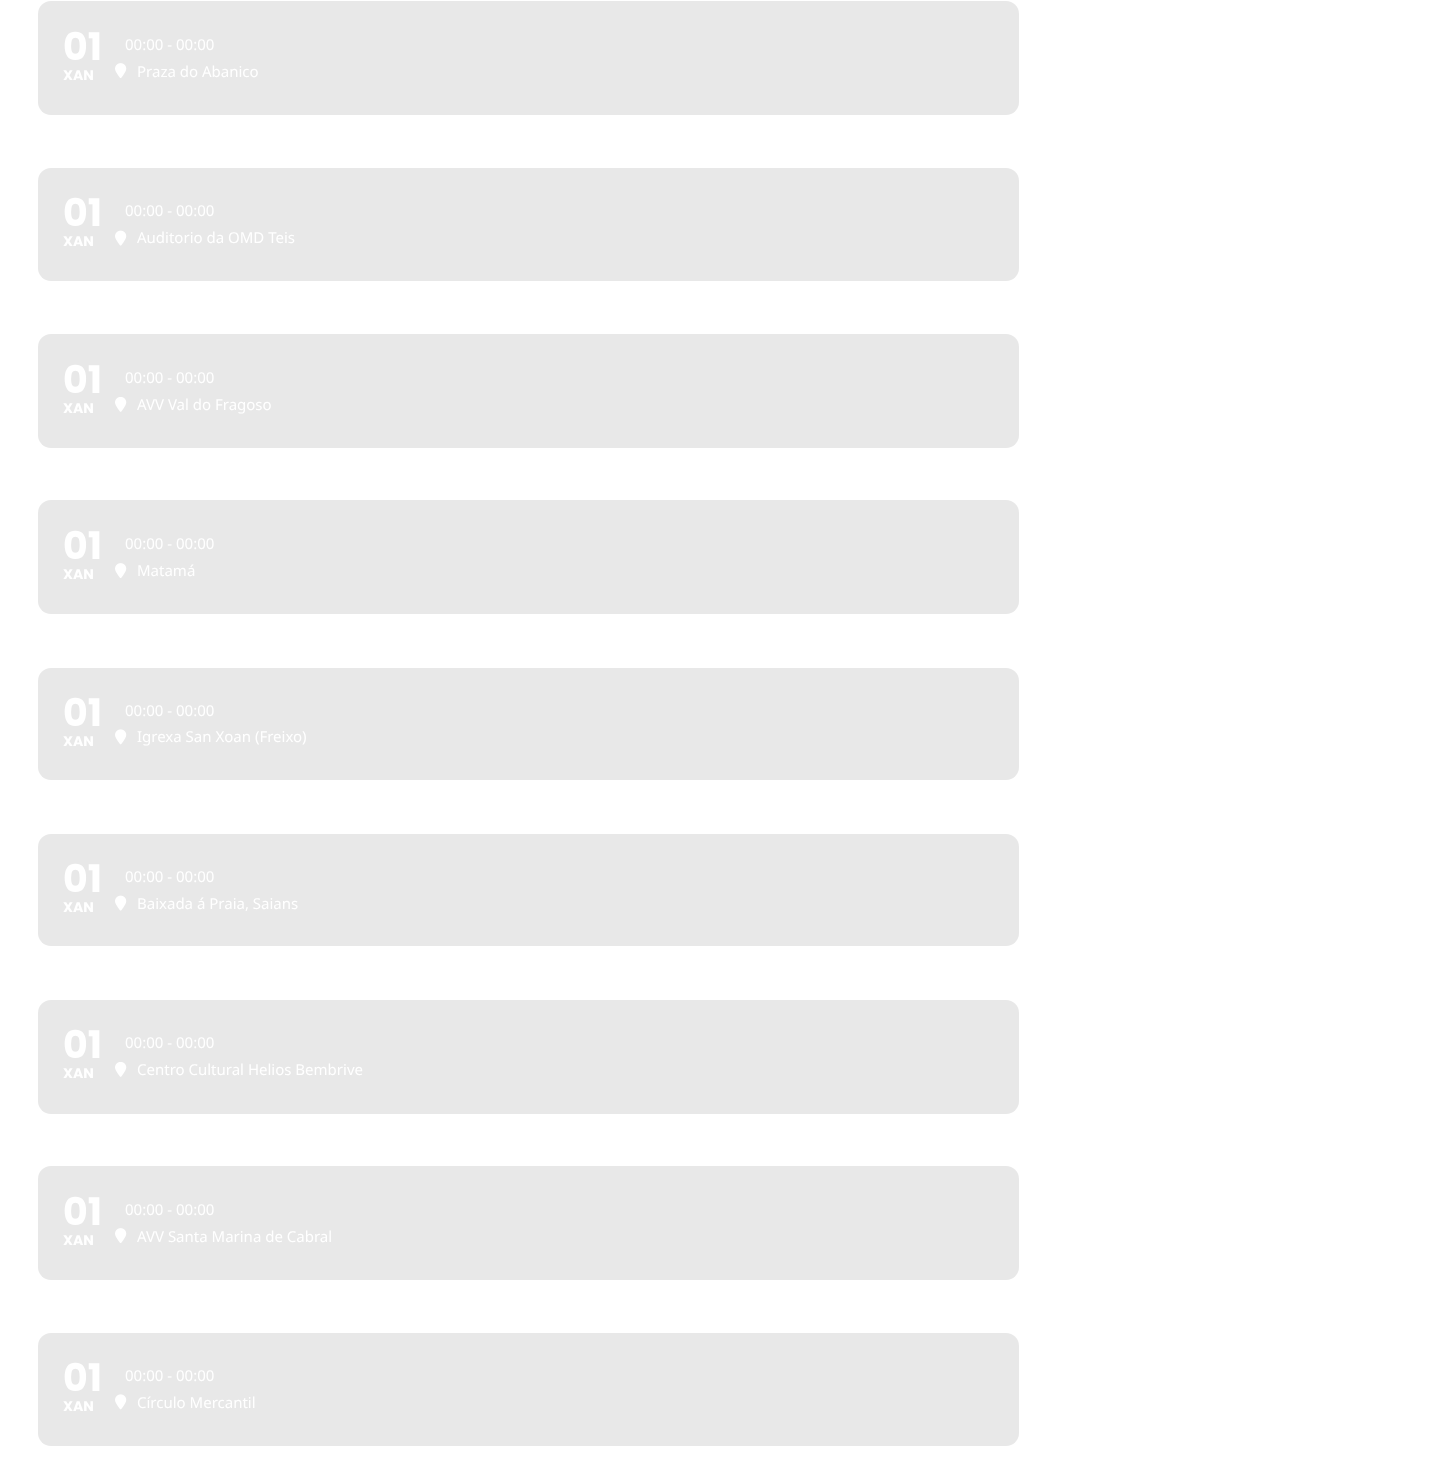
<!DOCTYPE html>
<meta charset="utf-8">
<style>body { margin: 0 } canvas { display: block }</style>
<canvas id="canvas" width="1452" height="1458"></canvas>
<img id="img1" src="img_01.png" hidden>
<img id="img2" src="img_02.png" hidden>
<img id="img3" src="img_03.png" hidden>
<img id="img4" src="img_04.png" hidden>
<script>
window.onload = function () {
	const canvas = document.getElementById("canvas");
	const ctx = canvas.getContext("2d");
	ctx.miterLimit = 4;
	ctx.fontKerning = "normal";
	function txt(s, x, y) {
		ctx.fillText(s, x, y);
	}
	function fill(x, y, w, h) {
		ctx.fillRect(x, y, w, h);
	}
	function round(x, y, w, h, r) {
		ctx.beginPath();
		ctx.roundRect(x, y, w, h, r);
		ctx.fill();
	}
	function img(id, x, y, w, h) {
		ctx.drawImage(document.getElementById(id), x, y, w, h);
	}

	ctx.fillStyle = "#FFFFFF";
	fill(0, 0, 1452, 1458);
	ctx.fillStyle = "#E8E8E8";
	round(38, 1, 981, 114, 13);
	img("img1", 115, 63, 12, 15);
	round(38, 168, 981, 113, 13);
	img("img2", 115, 230, 12, 16);
	round(38, 334, 981, 114, 13);
	img("img3", 115, 397, 12, 15);
	round(38, 500, 981, 114, 13);
	img("img1", 115, 563, 12, 15);
	round(38, 668, 981, 112, 13);
	img("img4", 115, 729, 12, 16);
	round(38, 834, 981, 112, 13);
	img("img2", 115, 895, 12, 16);
	round(38, 1000, 981, 114, 13);
	img("img3", 115, 1062, 12, 15);
	round(38, 1166, 981, 114, 13);
	img("img1", 115, 1228, 12, 15);
	round(38, 1333, 981, 113, 13);
	img("img4", 115, 1394, 12, 16);
	ctx.font = "bold 38px Poppins";
	ctx.fillStyle = "#FFFFFF";
	txt("01", 63, 60);
	ctx.font = "bold 14px Poppins";
	txt("XAN", 63, 80);
	ctx.font = "15px Noto Sans";
	txt("00:00 - 00:00", 125, 50);
	txt("Praza do Abanico", 137, 77);
	ctx.font = "bold 38px Poppins";
	txt("01", 63, 226);
	ctx.font = "bold 14px Poppins";
	txt("XAN", 63, 246);
	ctx.font = "15px Noto Sans";
	txt("00:00 - 00:00", 125, 216);
	txt("Auditorio da OMD Teis", 137, 243);
	ctx.font = "bold 38px Poppins";
	txt("01", 63, 393);
	ctx.font = "bold 14px Poppins";
	txt("XAN", 63, 413);
	ctx.font = "15px Noto Sans";
	txt("00:00 - 00:00", 125, 383);
	txt("AVV Val do Fragoso", 137, 410);
	ctx.font = "bold 38px Poppins";
	txt("01", 63, 559);
	ctx.font = "bold 14px Poppins";
	txt("XAN", 63, 579);
	ctx.font = "15px Noto Sans";
	txt("00:00 - 00:00", 125, 549);
	txt("Matamá", 137, 576);
	ctx.font = "bold 38px Poppins";
	txt("01", 63, 726);
	ctx.font = "bold 14px Poppins";
	txt("XAN", 63, 746);
	ctx.font = "15px Noto Sans";
	txt("00:00 - 00:00", 125, 716);
	txt("Igrexa San Xoan (Freixo)", 137, 742);
	ctx.font = "bold 38px Poppins";
	txt("01", 63, 892);
	ctx.font = "bold 14px Poppins";
	txt("XAN", 63, 912);
	ctx.font = "15px Noto Sans";
	txt("00:00 - 00:00", 125, 882);
	txt("Baixada á Praia, Saians", 137, 909);
	ctx.font = "bold 38px Poppins";
	txt("01", 63, 1058);
	ctx.font = "bold 14px Poppins";
	txt("XAN", 63, 1078);
	ctx.font = "15px Noto Sans";
	txt("00:00 - 00:00", 125, 1048);
	txt("Centro Cultural Helios Bembrive", 137, 1075);
	ctx.font = "bold 38px Poppins";
	txt("01", 63, 1225);
	ctx.font = "bold 14px Poppins";
	txt("XAN", 63, 1245);
	ctx.font = "15px Noto Sans";
	txt("00:00 - 00:00", 125, 1215);
	txt("AVV Santa Marina de Cabral", 137, 1242);
	ctx.font = "bold 38px Poppins";
	txt("01", 63, 1391);
	ctx.font = "bold 14px Poppins";
	txt("XAN", 63, 1411);
	ctx.font = "15px Noto Sans";
	txt("00:00 - 00:00", 125, 1381);
	txt("Círculo Mercantil", 137, 1408);
};
</script>
